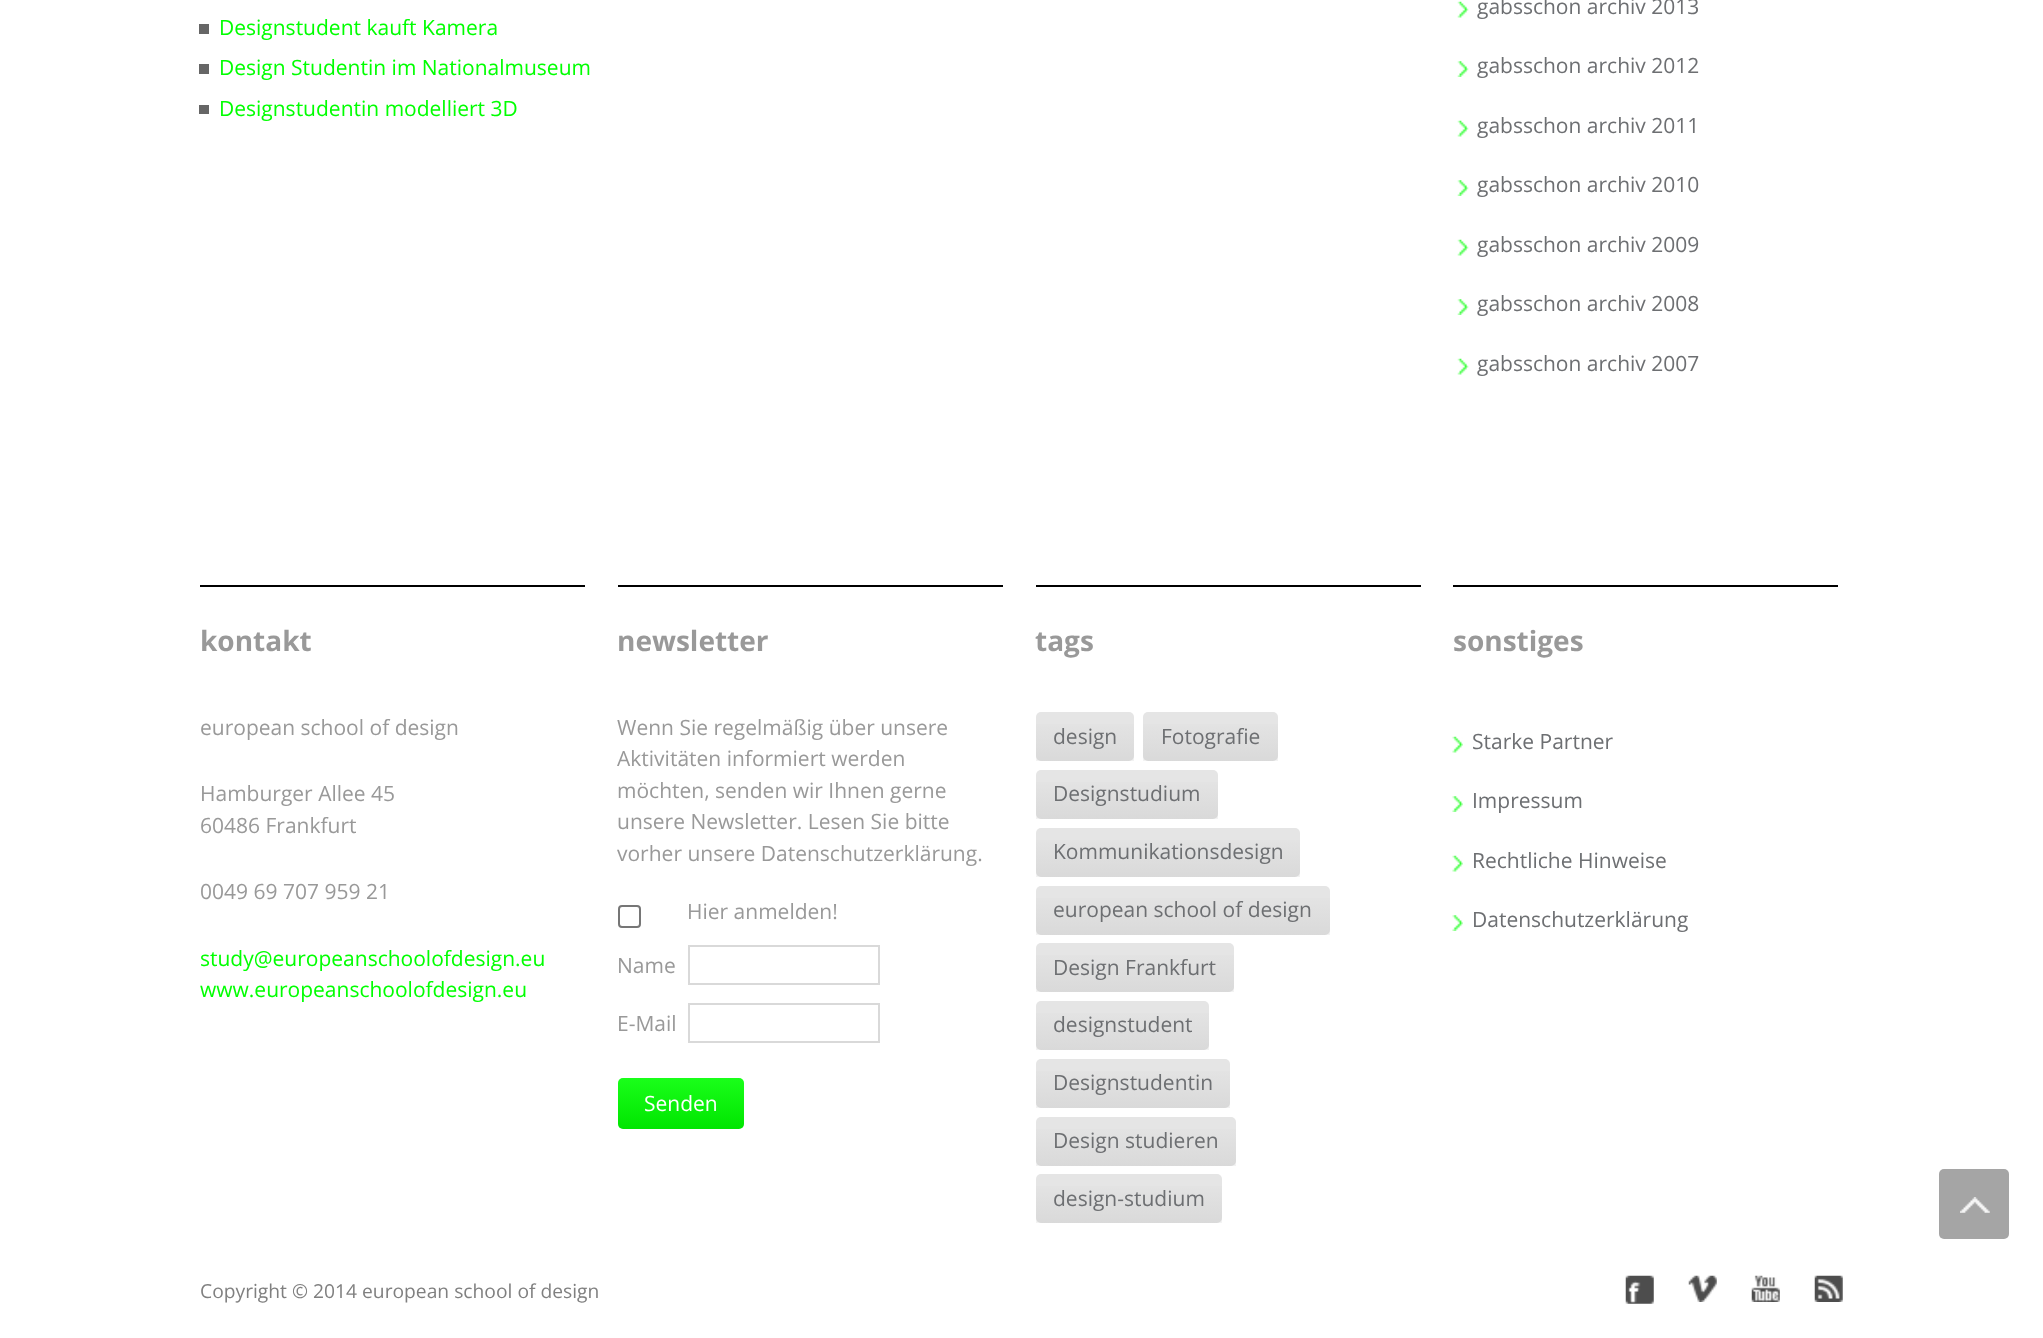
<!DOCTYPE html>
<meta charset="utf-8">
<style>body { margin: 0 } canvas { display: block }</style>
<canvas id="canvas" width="2043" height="1338"></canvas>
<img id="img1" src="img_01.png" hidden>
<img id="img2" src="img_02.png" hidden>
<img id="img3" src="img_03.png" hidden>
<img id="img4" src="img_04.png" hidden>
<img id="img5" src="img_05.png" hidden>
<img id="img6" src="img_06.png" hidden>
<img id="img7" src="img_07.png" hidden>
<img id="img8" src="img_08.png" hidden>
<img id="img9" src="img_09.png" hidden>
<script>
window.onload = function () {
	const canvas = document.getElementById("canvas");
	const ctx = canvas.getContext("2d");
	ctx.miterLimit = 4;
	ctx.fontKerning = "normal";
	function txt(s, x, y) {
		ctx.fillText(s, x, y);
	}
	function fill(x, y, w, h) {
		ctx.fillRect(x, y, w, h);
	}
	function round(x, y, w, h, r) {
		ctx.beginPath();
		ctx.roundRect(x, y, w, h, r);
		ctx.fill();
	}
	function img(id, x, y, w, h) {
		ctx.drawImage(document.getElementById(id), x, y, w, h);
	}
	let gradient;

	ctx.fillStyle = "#FFFFFF";
	fill(0, 0, 2043, 1338);
	ctx.fillStyle = "#666666";
	fill(199, 24, 10, 10);
	fill(199, 64, 10, 10);
	fill(199, 105, 10, 9);
	img("img1", 1457, 1, 12, 17);
	img("img2", 1457, 61, 12, 16);
	img("img1", 1457, 120, 12, 17);
	img("img2", 1457, 180, 12, 16);
	img("img1", 1457, 239, 12, 17);
	img("img2", 1457, 299, 12, 16);
	img("img1", 1457, 358, 12, 17);
	ctx.fillStyle = "#000000";
	fill(200, 585, 385, 2);
	fill(618, 585, 385, 2);
	ctx.beginPath();
	ctx.roundRect(619, 906, 21, 21, 3);
	ctx.strokeStyle = "#767676";
	ctx.lineWidth = 2;
	ctx.stroke();
	ctx.strokeStyle = "#D9D9D9";
	ctx.strokeRect(689, 946, 190, 38);
	ctx.strokeRect(689, 1004, 190, 38);
	ctx.fillStyle = "#00FF00";
	round(618, 1078, 126, 51, 5);
	gradient = ctx.createLinearGradient(681, 1078, 681, 1129);
	gradient.addColorStop(0, "rgba(255, 255, 255, 0.1)");
	gradient.addColorStop(1, "rgba(0, 0, 0, 0.1)");
	ctx.fillStyle = gradient;
	round(618, 1078, 126, 51, 5);
	ctx.fillStyle = "#000000";
	fill(1036, 585, 385, 2);
	ctx.fillStyle = "#E5E5E5";
	round(1036, 712, 98, 49, 5);
	gradient = ctx.createLinearGradient(1085, 712, 1085, 761);
	gradient.addColorStop(0, "rgba(255, 255, 255, 0.05)");
	gradient.addColorStop(1, "rgba(0, 0, 0, 0.05)");
	ctx.fillStyle = gradient;
	fill(1036, 724, 98, 37);
	ctx.fillStyle = "#E5E5E5";
	round(1143, 712, 135, 49, 5);
	gradient = ctx.createLinearGradient(1210, 712, 1210, 761);
	gradient.addColorStop(0, "rgba(255, 255, 255, 0.05)");
	gradient.addColorStop(1, "rgba(0, 0, 0, 0.05)");
	ctx.fillStyle = gradient;
	fill(1143, 724, 135, 37);
	ctx.fillStyle = "#E5E5E5";
	round(1036, 770, 182, 49, 5);
	gradient = ctx.createLinearGradient(1127, 770, 1127, 819);
	gradient.addColorStop(0, "rgba(255, 255, 255, 0.05)");
	gradient.addColorStop(1, "rgba(0, 0, 0, 0.05)");
	ctx.fillStyle = gradient;
	fill(1036, 782, 182, 37);
	ctx.fillStyle = "#E5E5E5";
	round(1036, 828, 264, 49, 5);
	gradient = ctx.createLinearGradient(1168, 828, 1168, 877);
	gradient.addColorStop(0, "rgba(255, 255, 255, 0.05)");
	gradient.addColorStop(1, "rgba(0, 0, 0, 0.05)");
	ctx.fillStyle = gradient;
	fill(1036, 840, 264, 37);
	ctx.fillStyle = "#E5E5E5";
	round(1036, 886, 294, 49, 5);
	gradient = ctx.createLinearGradient(1183, 886, 1183, 935);
	gradient.addColorStop(0, "rgba(255, 255, 255, 0.05)");
	gradient.addColorStop(1, "rgba(0, 0, 0, 0.05)");
	ctx.fillStyle = gradient;
	fill(1036, 898, 294, 37);
	ctx.fillStyle = "#E5E5E5";
	round(1036, 943, 198, 49, 5);
	gradient = ctx.createLinearGradient(1135, 943, 1135, 992);
	gradient.addColorStop(0, "rgba(255, 255, 255, 0.05)");
	gradient.addColorStop(1, "rgba(0, 0, 0, 0.05)");
	ctx.fillStyle = gradient;
	fill(1036, 955, 198, 37);
	ctx.fillStyle = "#E5E5E5";
	round(1036, 1001, 173, 49, 5);
	gradient = ctx.createLinearGradient(1123, 1001, 1123, 1050);
	gradient.addColorStop(0, "rgba(255, 255, 255, 0.05)");
	gradient.addColorStop(1, "rgba(0, 0, 0, 0.05)");
	ctx.fillStyle = gradient;
	fill(1036, 1013, 173, 37);
	ctx.fillStyle = "#E5E5E5";
	round(1036, 1059, 194, 49, 5);
	gradient = ctx.createLinearGradient(1133, 1059, 1133, 1108);
	gradient.addColorStop(0, "rgba(255, 255, 255, 0.05)");
	gradient.addColorStop(1, "rgba(0, 0, 0, 0.05)");
	ctx.fillStyle = gradient;
	fill(1036, 1071, 194, 37);
	ctx.fillStyle = "#E5E5E5";
	round(1036, 1117, 200, 49, 5);
	gradient = ctx.createLinearGradient(1136, 1117, 1136, 1166);
	gradient.addColorStop(0, "rgba(255, 255, 255, 0.05)");
	gradient.addColorStop(1, "rgba(0, 0, 0, 0.05)");
	ctx.fillStyle = gradient;
	fill(1036, 1129, 200, 37);
	ctx.fillStyle = "#E5E5E5";
	round(1036, 1174, 186, 49, 5);
	gradient = ctx.createLinearGradient(1129, 1174, 1129, 1223);
	gradient.addColorStop(0, "rgba(255, 255, 255, 0.05)");
	gradient.addColorStop(1, "rgba(0, 0, 0, 0.05)");
	ctx.fillStyle = gradient;
	fill(1036, 1186, 186, 37);
	ctx.fillStyle = "#000000";
	fill(1453, 585, 385, 2);
	img("img3", 1452, 736, 11, 17);
	img("img4", 1452, 796, 11, 16);
	img("img3", 1452, 855, 11, 17);
	img("img4", 1452, 915, 11, 16);
	img("img5", 1625, 1275, 29, 29);
	img("img6", 1688, 1275, 29, 27);
	img("img7", 1751, 1275, 29, 27);
	img("img8", 1814, 1275, 29, 27);
	ctx.fillStyle = "#A5A5A5";
	round(1939, 1169, 70, 70, 5);
	img("img9", 1960, 1197, 30, 16);
	ctx.font = "21px Open Sans";
	ctx.fillStyle = "#00FF00";
	txt("Designstudent kauft Kamera", 219, 35);
	txt("Design Studentin im Nationalmuseum", 219, 75);
	txt("Designstudentin modelliert 3D", 219, 116);
	ctx.fillStyle = "#6D6F72";
	txt("gabsschon archiv 2013", 1477, 14);
	txt("gabsschon archiv 2012", 1477, 73);
	txt("gabsschon archiv 2011", 1477, 133);
	txt("gabsschon archiv 2010", 1477, 192);
	txt("gabsschon archiv 2009", 1477, 252);
	txt("gabsschon archiv 2008", 1477, 311);
	txt("gabsschon archiv 2007", 1477, 371);
	ctx.font = "bold 28px Open Sans";
	ctx.fillStyle = "#999999";
	txt("kontakt", 200, 651);
	ctx.font = "21px Open Sans";
	txt("european school of design", 200, 735);
	txt("Hamburger Allee 45", 200, 801);
	txt("60486 Frankfurt", 200, 833);
	txt("0049 69 707 959 21", 200, 899);
	ctx.fillStyle = "#00FF00";
	txt("study@europeanschoolofdesign.eu", 200, 966);
	txt("www.europeanschoolofdesign.eu", 200, 997);
	ctx.font = "bold 28px Open Sans";
	ctx.fillStyle = "#999999";
	txt("newsletter", 617, 651);
	ctx.font = "21px Open Sans";
	txt("Wenn Sie regelmäßig über unsere", 617, 735);
	txt("Aktivitäten informiert werden", 617, 766);
	txt("möchten, senden wir Ihnen gerne", 617, 798);
	txt("unsere Newsletter. Lesen Sie bitte", 617, 829);
	txt("vorher unsere Datenschutzerklärung.", 617, 861);
	txt("Hier anmelden!", 687, 919);
	txt("Name", 617, 973);
	txt("E-Mail", 617, 1031);
	ctx.fillStyle = "#FFFFFF";
	txt("Senden", 644, 1111);
	ctx.font = "bold 28px Open Sans";
	ctx.fillStyle = "#999999";
	txt("tags", 1035, 651);
	ctx.font = "21px Open Sans";
	ctx.fillStyle = "#6D6F72";
	txt("design", 1053, 744);
	txt("Fotografie", 1161, 744);
	txt("Designstudium", 1053, 801);
	txt("Kommunikationsdesign", 1053, 859);
	txt("european school of design", 1053, 917);
	txt("Design Frankfurt", 1053, 975);
	txt("designstudent", 1053, 1032);
	txt("Designstudentin", 1053, 1090);
	txt("Design studieren", 1053, 1148);
	txt("design-studium", 1053, 1206);
	ctx.font = "bold 28px Open Sans";
	ctx.fillStyle = "#999999";
	txt("sonstiges", 1453, 651);
	ctx.font = "21px Open Sans";
	ctx.fillStyle = "#6D6F72";
	txt("Starke Partner", 1472, 749);
	txt("Impressum", 1472, 808);
	txt("Rechtliche Hinweise", 1472, 868);
	txt("Datenschutzerklärung", 1472, 927);
	ctx.font = "19.25px Open Sans";
	ctx.fillStyle = "#808080";
	txt("Copyright © 2014 european school of design", 200, 1298);
};
</script>
